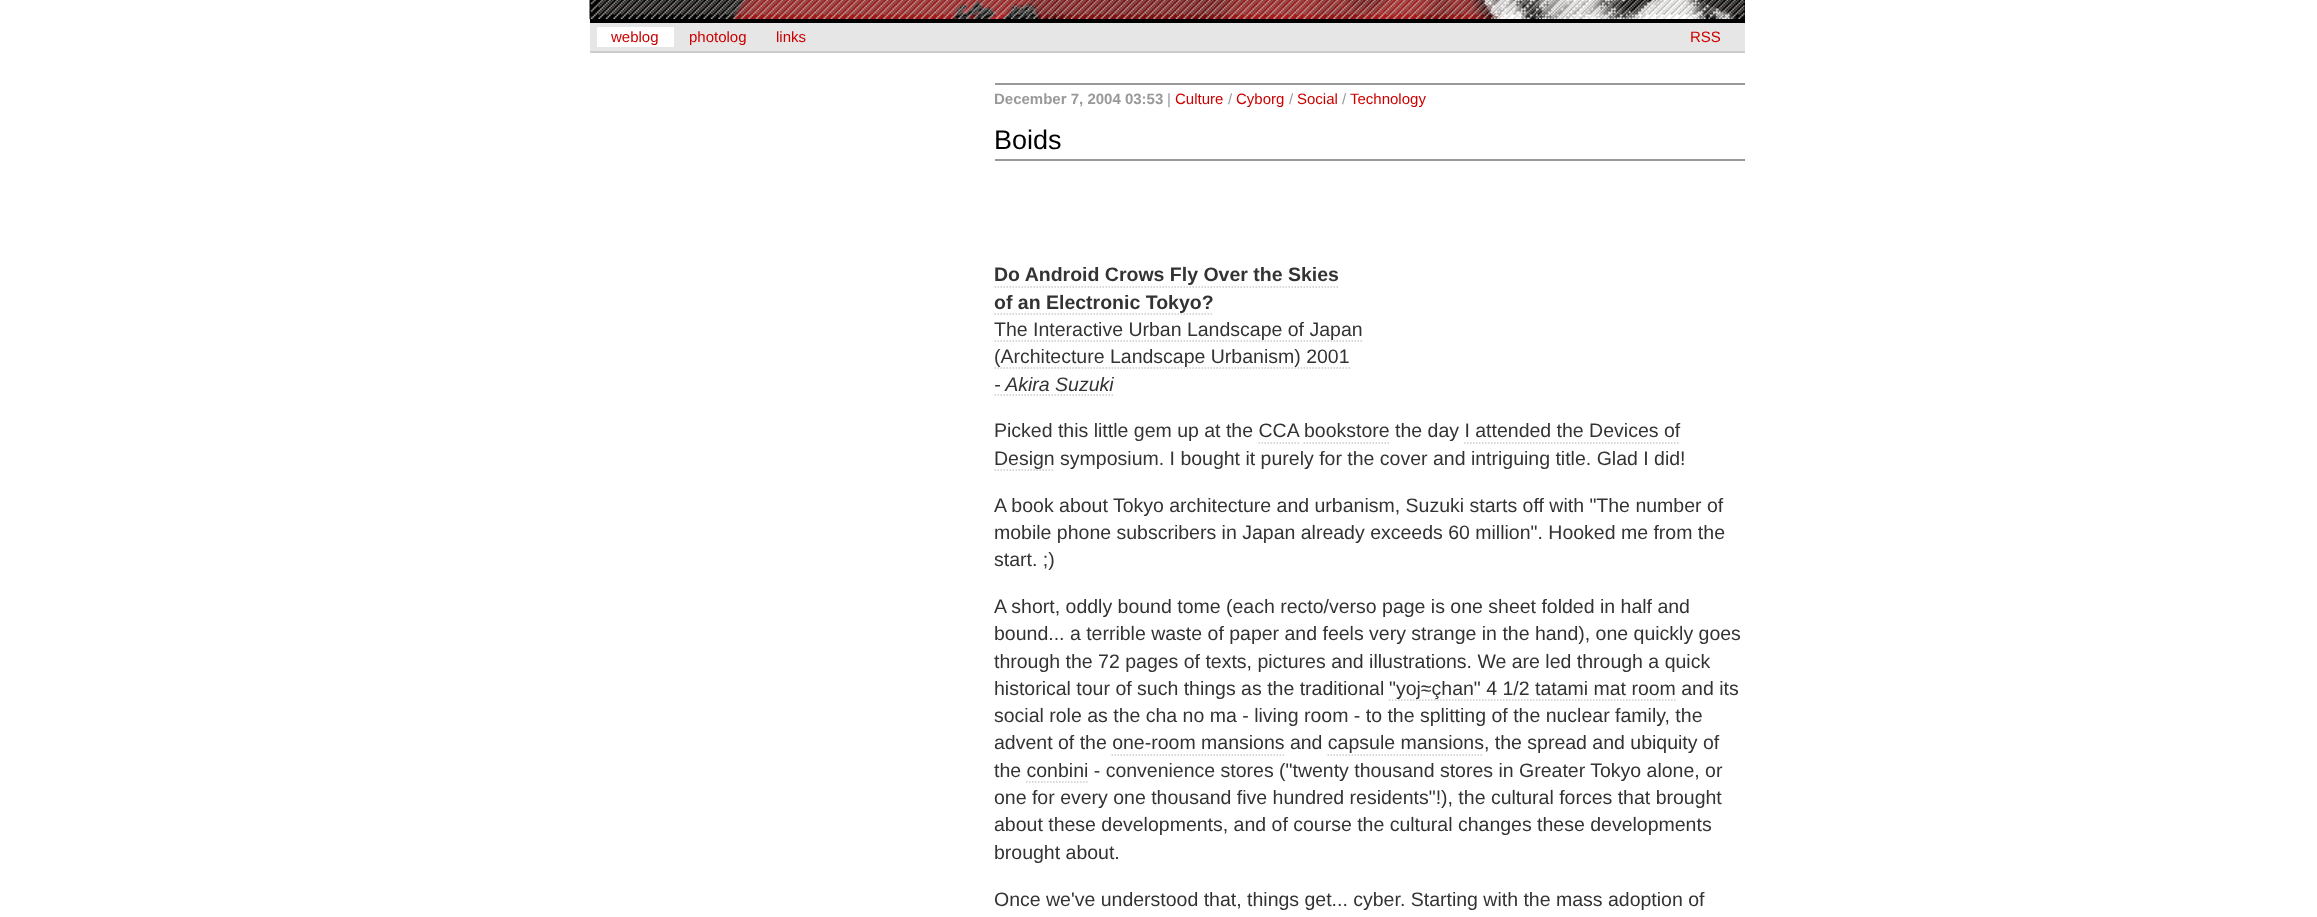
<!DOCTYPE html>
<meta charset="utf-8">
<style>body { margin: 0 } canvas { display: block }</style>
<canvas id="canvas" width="2317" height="917"></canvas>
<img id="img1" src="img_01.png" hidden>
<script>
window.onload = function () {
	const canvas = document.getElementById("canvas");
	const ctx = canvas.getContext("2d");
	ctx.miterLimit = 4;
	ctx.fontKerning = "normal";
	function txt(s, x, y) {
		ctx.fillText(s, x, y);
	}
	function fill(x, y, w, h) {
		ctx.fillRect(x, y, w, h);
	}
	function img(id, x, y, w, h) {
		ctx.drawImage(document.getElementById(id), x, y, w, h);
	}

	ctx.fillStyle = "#FFFFFF";
	fill(0, 0, 2317, 917);
	ctx.fillStyle = "#000000";
	fill(590, 0, 1155, 23);
	img("img1", 589, 0, 1156, 19);
	ctx.fillStyle = "#E6E6E6";
	fill(590, 23, 1155, 28);
	ctx.fillStyle = "#CCCCCC";
	fill(590, 51, 1155, 2);
	ctx.fillStyle = "#FFFFFF";
	fill(597, 27, 77, 20);
	ctx.fillStyle = "#999999";
	fill(995, 83, 750, 2);
	fill(995, 159, 750, 2);
	ctx.beginPath();
	ctx.moveTo(994.5, 287);
	ctx.lineTo(1338, 287);
	ctx.strokeStyle = "#CCCCCC";
	ctx.lineWidth = 1.5;
	ctx.setLineDash([1.5, 1.5]);
	ctx.stroke();
	ctx.beginPath();
	ctx.moveTo(994.5, 314);
	ctx.lineTo(1213.5, 314);
	ctx.stroke();
	ctx.beginPath();
	ctx.moveTo(994.5, 341);
	ctx.lineTo(1362, 341);
	ctx.stroke();
	ctx.beginPath();
	ctx.moveTo(994.5, 368);
	ctx.lineTo(1350, 368);
	ctx.stroke();
	ctx.beginPath();
	ctx.moveTo(994.5, 395);
	ctx.lineTo(1113, 395);
	ctx.stroke();
	ctx.beginPath();
	ctx.moveTo(1303.5, 443);
	ctx.lineTo(1389, 443);
	ctx.stroke();
	ctx.beginPath();
	ctx.moveTo(1258.5, 443);
	ctx.lineTo(1299, 443);
	ctx.stroke();
	ctx.beginPath();
	ctx.moveTo(1464, 443);
	ctx.lineTo(1680, 443);
	ctx.stroke();
	ctx.beginPath();
	ctx.moveTo(994.5, 470);
	ctx.lineTo(1054.5, 470);
	ctx.stroke();
	ctx.beginPath();
	ctx.moveTo(1389, 700);
	ctx.lineTo(1677, 700);
	ctx.stroke();
	ctx.beginPath();
	ctx.moveTo(1111.5, 755);
	ctx.lineTo(1284, 755);
	ctx.stroke();
	ctx.beginPath();
	ctx.moveTo(1327.5, 755);
	ctx.lineTo(1483.5, 755);
	ctx.stroke();
	ctx.font = "15px Liberation Sans";
	ctx.fillStyle = "#CC0000";
	txt("weblog", 611, 42);
	txt("photolog", 689, 42);
	txt("links", 776, 42);
	txt("RSS", 1690, 42);
	ctx.font = "bold 15px Liberation Sans";
	ctx.fillStyle = "#999999";
	txt("December 7, 2004 03:53", 994, 104);
	ctx.font = "15px Liberation Sans";
	txt("|", 1167, 104);
	ctx.fillStyle = "#CC0000";
	txt("Culture", 1175, 104);
	ctx.fillStyle = "#999999";
	txt("/", 1228, 104);
	ctx.fillStyle = "#CC0000";
	txt("Cyborg", 1236, 104);
	ctx.fillStyle = "#999999";
	txt("/", 1289, 104);
	ctx.fillStyle = "#CC0000";
	txt("Social", 1297, 104);
	ctx.fillStyle = "#999999";
	txt("/", 1342, 104);
	ctx.fillStyle = "#CC0000";
	txt("Technology", 1350, 104);
	ctx.font = "27px Liberation Sans";
	ctx.fillStyle = "#000000";
	txt("Boids", 994, 149);
	ctx.font = "bold 19.5px Liberation Sans";
	ctx.fillStyle = "#333333";
	txt("Do Android Crows Fly Over the Skies", 994, 281);
	txt("of an Electronic Tokyo?", 994, 309);
	ctx.font = "19.5px Liberation Sans";
	txt("The Interactive Urban Landscape of Japan", 994, 336);
	txt("(Architecture Landscape Urbanism) 2001", 994, 363);
	ctx.font = "italic 19.5px Liberation Sans";
	txt("- Akira Suzuki", 994, 391);
	ctx.font = "19.5px Liberation Sans";
	txt("Picked this little gem up at the CCA", 994, 437);
	txt("bookstore the day I attended the Devices of", 1304, 437);
	txt("Design symposium. I bought it purely for the cover and intriguing title. Glad I did!", 994, 465);
	txt("A book about Tokyo architecture and urbanism, Suzuki starts off with \"The number of", 994, 512);
	txt("mobile phone subscribers in Japan already exceeds 60 million\". Hooked me from the", 994, 539);
	txt("start. ;)", 994, 566);
	txt("A short, oddly bound tome (each recto/verso page is one sheet folded in half and", 994, 613);
	txt("bound... a terrible waste of paper and feels very strange in the hand), one quickly goes", 994, 640);
	txt("through the 72 pages of texts, pictures and illustrations. We are led through a quick", 994, 668);
	txt("historical tour of such things as the traditional", 994, 695);
	txt("\"yoj≈çhan\" 4 1/2 tatami mat room and its", 1389, 695);
	txt("social role as the cha no ma - living room - to the splitting of the nuclear family, the", 994, 722);
	txt("advent of the one-room mansions and capsule mansions, the spread and ubiquity of", 994, 749);
	txt("the conbini - convenience stores (\"twenty thousand stores in Greater Tokyo alone, or", 994, 777);
	ctx.beginPath();
	ctx.moveTo(1026, 782);
	ctx.lineTo(1087.5, 782);
	ctx.stroke();
	txt("one for every one thousand five hundred residents\"!), the cultural forces that brought", 994, 804);
	txt("about these developments, and of course the cultural changes these developments", 994, 831);
	txt("brought about.", 994, 859);
	txt("Once we've understood that, things get... cyber. Starting with the mass adoption of", 994, 906);
};
</script>
